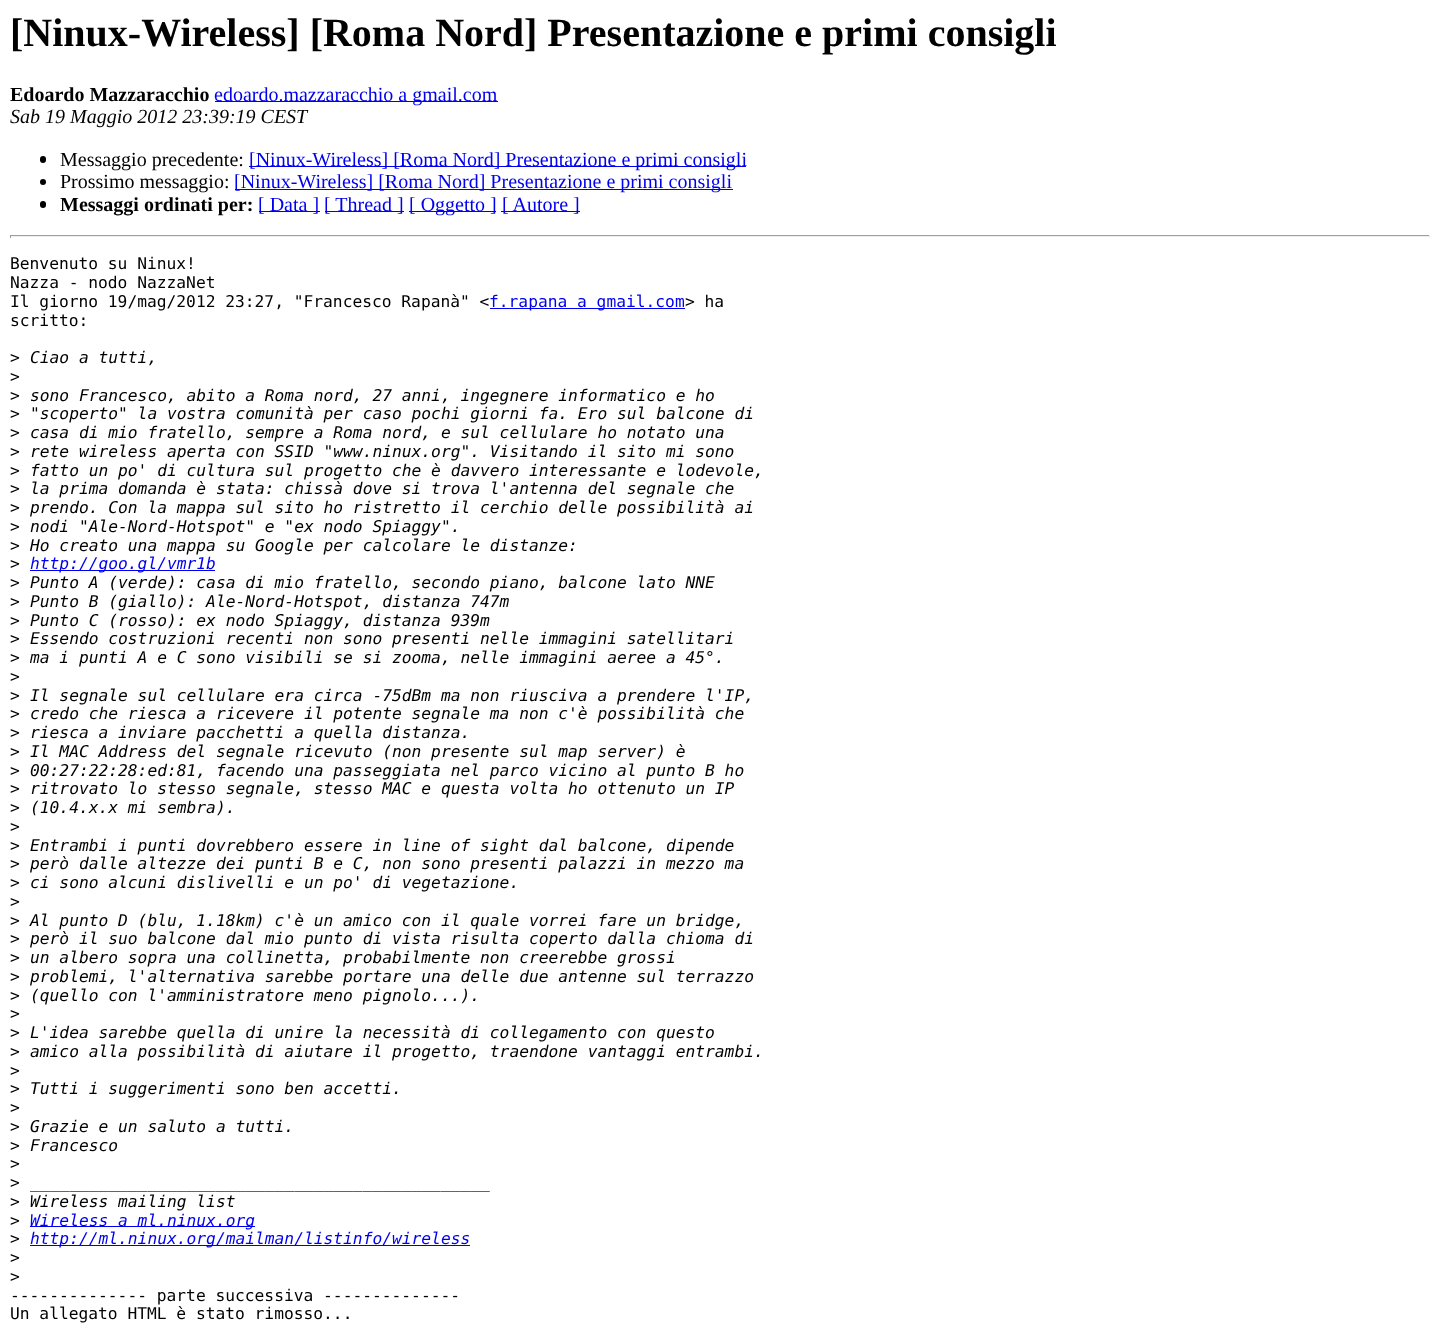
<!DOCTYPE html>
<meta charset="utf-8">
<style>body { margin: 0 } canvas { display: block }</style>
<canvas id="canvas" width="1439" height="1325"></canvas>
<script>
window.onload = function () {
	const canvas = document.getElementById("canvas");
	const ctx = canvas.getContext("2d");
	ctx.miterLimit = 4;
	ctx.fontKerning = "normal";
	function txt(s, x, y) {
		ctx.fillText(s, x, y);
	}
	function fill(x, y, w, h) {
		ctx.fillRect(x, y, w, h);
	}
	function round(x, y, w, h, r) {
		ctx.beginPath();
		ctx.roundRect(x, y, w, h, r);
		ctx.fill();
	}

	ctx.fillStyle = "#FFFFFF";
	fill(0, 0, 1439, 1325);
	ctx.fillStyle = "#0000EE";
	fill(215, 101, 283, 1);
	ctx.fillStyle = "#000000";
	round(40, 156, 6, 7, 3);
	ctx.fillStyle = "#0000EE";
	fill(249, 166, 497, 1);
	ctx.fillStyle = "#000000";
	ctx.beginPath();
	ctx.arc(43, 182, 3, 0, Math.PI * 2);
	ctx.fill();
	ctx.fillStyle = "#0000EE";
	fill(235, 189, 498, 1);
	ctx.fillStyle = "#000000";
	round(40, 201, 6, 7, 3);
	ctx.fillStyle = "#0000EE";
	fill(259, 211, 61, 1);
	fill(325, 211, 79, 1);
	fill(409, 211, 87, 1);
	fill(501, 211, 79, 1);
	ctx.fillStyle = "#9F9F9F";
	fill(10, 235, 1420, 1);
	ctx.fillStyle = "#EEEEEE";
	fill(1429, 235, 1, 3);
	fill(10, 236, 1420, 1);
	ctx.fillStyle = "#9F9F9F";
	fill(10, 235, 1, 3);
	ctx.fillStyle = "#0000EE";
	fill(490, 308, 195, 1);
	fill(30, 570, 185, 1);
	fill(30, 1226, 225, 1);
	fill(30, 1245, 440, 1);
	ctx.font = "bold 40px Liberation Serif";
	ctx.fillStyle = "#000000";
	txt("[Ninux-Wireless] [Roma Nord] Presentazione e primi consigli", 10, 46);
	ctx.font = "bold 20px Liberation Serif";
	txt("Edoardo Mazzaracchio", 10, 101);
	ctx.font = "20px Liberation Serif";
	ctx.fillStyle = "#0000EE";
	txt("edoardo.mazzaracchio a gmail.com", 214, 101);
	ctx.font = "italic 20px Liberation Serif";
	ctx.fillStyle = "#000000";
	txt("Sab 19 Maggio 2012 23:39:19 CEST", 10, 123);
	ctx.font = "20px Liberation Serif";
	txt("Messaggio precedente:", 60, 166);
	ctx.fillStyle = "#0000EE";
	txt("[Ninux-Wireless] [Roma Nord] Presentazione e primi consigli", 249, 166);
	ctx.fillStyle = "#000000";
	txt("Prossimo messaggio:", 60, 188);
	ctx.fillStyle = "#0000EE";
	txt("[Ninux-Wireless] [Roma Nord] Presentazione e primi consigli", 234, 188);
	ctx.font = "bold 20px Liberation Serif";
	ctx.fillStyle = "#000000";
	txt("Messaggi ordinati per:", 60, 211);
	ctx.font = "20px Liberation Serif";
	ctx.fillStyle = "#0000EE";
	txt("[ Data ]", 258, 211);
	txt("[ Thread ]", 324, 211);
	txt("[ Oggetto ]", 409, 211);
	txt("[ Autore ]", 502, 211);
	ctx.font = "16.25px DejaVu Sans Mono";
	ctx.fillStyle = "#000000";
	txt("Benvenuto su Ninux!", 10, 269);
	txt("Nazza - nodo NazzaNet", 10, 288);
	txt("Il giorno 19/mag/2012 23:27, \"Francesco Rapanà\" <", 10, 307);
	ctx.fillStyle = "#0000EE";
	txt("f.rapana a gmail.com", 489, 307);
	ctx.fillStyle = "#000000";
	txt("> ha", 685, 307);
	txt("scritto:", 10, 326);
	txt(">", 10, 363);
	ctx.font = "italic 16.25px DejaVu Sans Mono";
	txt("Ciao a tutti,", 30, 363);
	ctx.font = "16.25px DejaVu Sans Mono";
	txt(">", 10, 382);
	txt(">", 10, 401);
	ctx.font = "italic 16.25px DejaVu Sans Mono";
	txt("sono Francesco, abito a Roma nord, 27 anni, ingegnere informatico e ho", 30, 401);
	ctx.font = "16.25px DejaVu Sans Mono";
	txt(">", 10, 419);
	ctx.font = "italic 16.25px DejaVu Sans Mono";
	txt("\"scoperto\" la vostra comunità per caso pochi giorni fa. Ero sul balcone di", 30, 419);
	ctx.font = "16.25px DejaVu Sans Mono";
	txt(">", 10, 438);
	ctx.font = "italic 16.25px DejaVu Sans Mono";
	txt("casa di mio fratello, sempre a Roma nord, e sul cellulare ho notato una", 30, 438);
	ctx.font = "16.25px DejaVu Sans Mono";
	txt(">", 10, 457);
	ctx.font = "italic 16.25px DejaVu Sans Mono";
	txt("rete wireless aperta con SSID \"www.ninux.org\". Visitando il sito mi sono", 30, 457);
	ctx.font = "16.25px DejaVu Sans Mono";
	txt(">", 10, 476);
	ctx.font = "italic 16.25px DejaVu Sans Mono";
	txt("fatto un po' di cultura sul progetto che è davvero interessante e lodevole,", 30, 476);
	ctx.font = "16.25px DejaVu Sans Mono";
	txt(">", 10, 494);
	ctx.font = "italic 16.25px DejaVu Sans Mono";
	txt("la prima domanda è stata: chissà dove si trova l'antenna del segnale che", 30, 494);
	ctx.font = "16.25px DejaVu Sans Mono";
	txt(">", 10, 513);
	ctx.font = "italic 16.25px DejaVu Sans Mono";
	txt("prendo. Con la mappa sul sito ho ristretto il cerchio delle possibilità ai", 30, 513);
	ctx.font = "16.25px DejaVu Sans Mono";
	txt(">", 10, 532);
	ctx.font = "italic 16.25px DejaVu Sans Mono";
	txt("nodi \"Ale-Nord-Hotspot\" e \"ex nodo Spiaggy\".", 30, 532);
	ctx.font = "16.25px DejaVu Sans Mono";
	txt(">", 10, 551);
	ctx.font = "italic 16.25px DejaVu Sans Mono";
	txt("Ho creato una mappa su Google per calcolare le distanze:", 30, 551);
	ctx.font = "16.25px DejaVu Sans Mono";
	txt(">", 10, 569);
	ctx.font = "italic 16.25px DejaVu Sans Mono";
	ctx.fillStyle = "#0000EE";
	txt("http://goo.gl/vmr1b", 30, 569);
	ctx.font = "16.25px DejaVu Sans Mono";
	ctx.fillStyle = "#000000";
	txt(">", 10, 588);
	ctx.font = "italic 16.25px DejaVu Sans Mono";
	txt("Punto A (verde): casa di mio fratello, secondo piano, balcone lato NNE", 30, 588);
	ctx.font = "16.25px DejaVu Sans Mono";
	txt(">", 10, 607);
	ctx.font = "italic 16.25px DejaVu Sans Mono";
	txt("Punto B (giallo): Ale-Nord-Hotspot, distanza 747m", 30, 607);
	ctx.font = "16.25px DejaVu Sans Mono";
	txt(">", 10, 626);
	ctx.font = "italic 16.25px DejaVu Sans Mono";
	txt("Punto C (rosso): ex nodo Spiaggy, distanza 939m", 30, 626);
	ctx.font = "16.25px DejaVu Sans Mono";
	txt(">", 10, 644);
	ctx.font = "italic 16.25px DejaVu Sans Mono";
	txt("Essendo costruzioni recenti non sono presenti nelle immagini satellitari", 30, 644);
	ctx.font = "16.25px DejaVu Sans Mono";
	txt(">", 10, 663);
	ctx.font = "italic 16.25px DejaVu Sans Mono";
	txt("ma i punti A e C sono visibili se si zooma, nelle immagini aeree a 45°.", 30, 663);
	ctx.font = "16.25px DejaVu Sans Mono";
	txt(">", 10, 682);
	txt(">", 10, 701);
	ctx.font = "italic 16.25px DejaVu Sans Mono";
	txt("Il segnale sul cellulare era circa -75dBm ma non riusciva a prendere l'IP,", 30, 701);
	ctx.font = "16.25px DejaVu Sans Mono";
	txt(">", 10, 719);
	ctx.font = "italic 16.25px DejaVu Sans Mono";
	txt("credo che riesca a ricevere il potente segnale ma non c'è possibilità che", 30, 719);
	ctx.font = "16.25px DejaVu Sans Mono";
	txt(">", 10, 738);
	ctx.font = "italic 16.25px DejaVu Sans Mono";
	txt("riesca a inviare pacchetti a quella distanza.", 30, 738);
	ctx.font = "16.25px DejaVu Sans Mono";
	txt(">", 10, 757);
	ctx.font = "italic 16.25px DejaVu Sans Mono";
	txt("Il MAC Address del segnale ricevuto (non presente sul map server) è", 30, 757);
	ctx.font = "16.25px DejaVu Sans Mono";
	txt(">", 10, 776);
	ctx.font = "italic 16.25px DejaVu Sans Mono";
	txt("00:27:22:28:ed:81, facendo una passeggiata nel parco vicino al punto B ho", 30, 776);
	ctx.font = "16.25px DejaVu Sans Mono";
	txt(">", 10, 794);
	ctx.font = "italic 16.25px DejaVu Sans Mono";
	txt("ritrovato lo stesso segnale, stesso MAC e questa volta ho ottenuto un IP", 30, 794);
	ctx.font = "16.25px DejaVu Sans Mono";
	txt(">", 10, 813);
	ctx.font = "italic 16.25px DejaVu Sans Mono";
	txt("(10.4.x.x mi sembra).", 30, 813);
	ctx.font = "16.25px DejaVu Sans Mono";
	txt(">", 10, 832);
	txt(">", 10, 851);
	ctx.font = "italic 16.25px DejaVu Sans Mono";
	txt("Entrambi i punti dovrebbero essere in line of sight dal balcone, dipende", 30, 851);
	ctx.font = "16.25px DejaVu Sans Mono";
	txt(">", 10, 869);
	ctx.font = "italic 16.25px DejaVu Sans Mono";
	txt("però dalle altezze dei punti B e C, non sono presenti palazzi in mezzo ma", 30, 869);
	ctx.font = "16.25px DejaVu Sans Mono";
	txt(">", 10, 888);
	ctx.font = "italic 16.25px DejaVu Sans Mono";
	txt("ci sono alcuni dislivelli e un po' di vegetazione.", 30, 888);
	ctx.font = "16.25px DejaVu Sans Mono";
	txt(">", 10, 907);
	txt(">", 10, 926);
	ctx.font = "italic 16.25px DejaVu Sans Mono";
	txt("Al punto D (blu, 1.18km) c'è un amico con il quale vorrei fare un bridge,", 30, 926);
	ctx.font = "16.25px DejaVu Sans Mono";
	txt(">", 10, 944);
	ctx.font = "italic 16.25px DejaVu Sans Mono";
	txt("però il suo balcone dal mio punto di vista risulta coperto dalla chioma di", 30, 944);
	ctx.font = "16.25px DejaVu Sans Mono";
	txt(">", 10, 963);
	ctx.font = "italic 16.25px DejaVu Sans Mono";
	txt("un albero sopra una collinetta, probabilmente non creerebbe grossi", 30, 963);
	ctx.font = "16.25px DejaVu Sans Mono";
	txt(">", 10, 982);
	ctx.font = "italic 16.25px DejaVu Sans Mono";
	txt("problemi, l'alternativa sarebbe portare una delle due antenne sul terrazzo", 30, 982);
	ctx.font = "16.25px DejaVu Sans Mono";
	txt(">", 10, 1001);
	ctx.font = "italic 16.25px DejaVu Sans Mono";
	txt("(quello con l'amministratore meno pignolo...).", 30, 1001);
	ctx.font = "16.25px DejaVu Sans Mono";
	txt(">", 10, 1019);
	txt(">", 10, 1038);
	ctx.font = "italic 16.25px DejaVu Sans Mono";
	txt("L'idea sarebbe quella di unire la necessità di collegamento con questo", 30, 1038);
	ctx.font = "16.25px DejaVu Sans Mono";
	txt(">", 10, 1057);
	ctx.font = "italic 16.25px DejaVu Sans Mono";
	txt("amico alla possibilità di aiutare il progetto, traendone vantaggi entrambi.", 30, 1057);
	ctx.font = "16.25px DejaVu Sans Mono";
	txt(">", 10, 1076);
	txt(">", 10, 1094);
	ctx.font = "italic 16.25px DejaVu Sans Mono";
	txt("Tutti i suggerimenti sono ben accetti.", 30, 1094);
	ctx.font = "16.25px DejaVu Sans Mono";
	txt(">", 10, 1113);
	txt(">", 10, 1132);
	ctx.font = "italic 16.25px DejaVu Sans Mono";
	txt("Grazie e un saluto a tutti.", 30, 1132);
	ctx.font = "16.25px DejaVu Sans Mono";
	txt(">", 10, 1151);
	ctx.font = "italic 16.25px DejaVu Sans Mono";
	txt("Francesco", 30, 1151);
	ctx.font = "16.25px DejaVu Sans Mono";
	txt(">", 10, 1169);
	txt(">", 10, 1188);
	ctx.font = "italic 16.25px DejaVu Sans Mono";
	txt("_______________________________________________", 30, 1188);
	ctx.font = "16.25px DejaVu Sans Mono";
	txt(">", 10, 1207);
	ctx.font = "italic 16.25px DejaVu Sans Mono";
	txt("Wireless mailing list", 30, 1207);
	ctx.font = "16.25px DejaVu Sans Mono";
	txt(">", 10, 1226);
	ctx.font = "italic 16.25px DejaVu Sans Mono";
	ctx.fillStyle = "#0000EE";
	txt("Wireless a ml.ninux.org", 30, 1226);
	ctx.font = "16.25px DejaVu Sans Mono";
	ctx.fillStyle = "#000000";
	txt(">", 10, 1244);
	ctx.font = "italic 16.25px DejaVu Sans Mono";
	ctx.fillStyle = "#0000EE";
	txt("http://ml.ninux.org/mailman/listinfo/wireless", 30, 1244);
	ctx.font = "16.25px DejaVu Sans Mono";
	ctx.fillStyle = "#000000";
	txt(">", 10, 1263);
	txt(">", 10, 1282);
	txt("-------------- parte successiva --------------", 10, 1301);
	txt("Un allegato HTML è stato rimosso...", 10, 1319);
};
</script>
